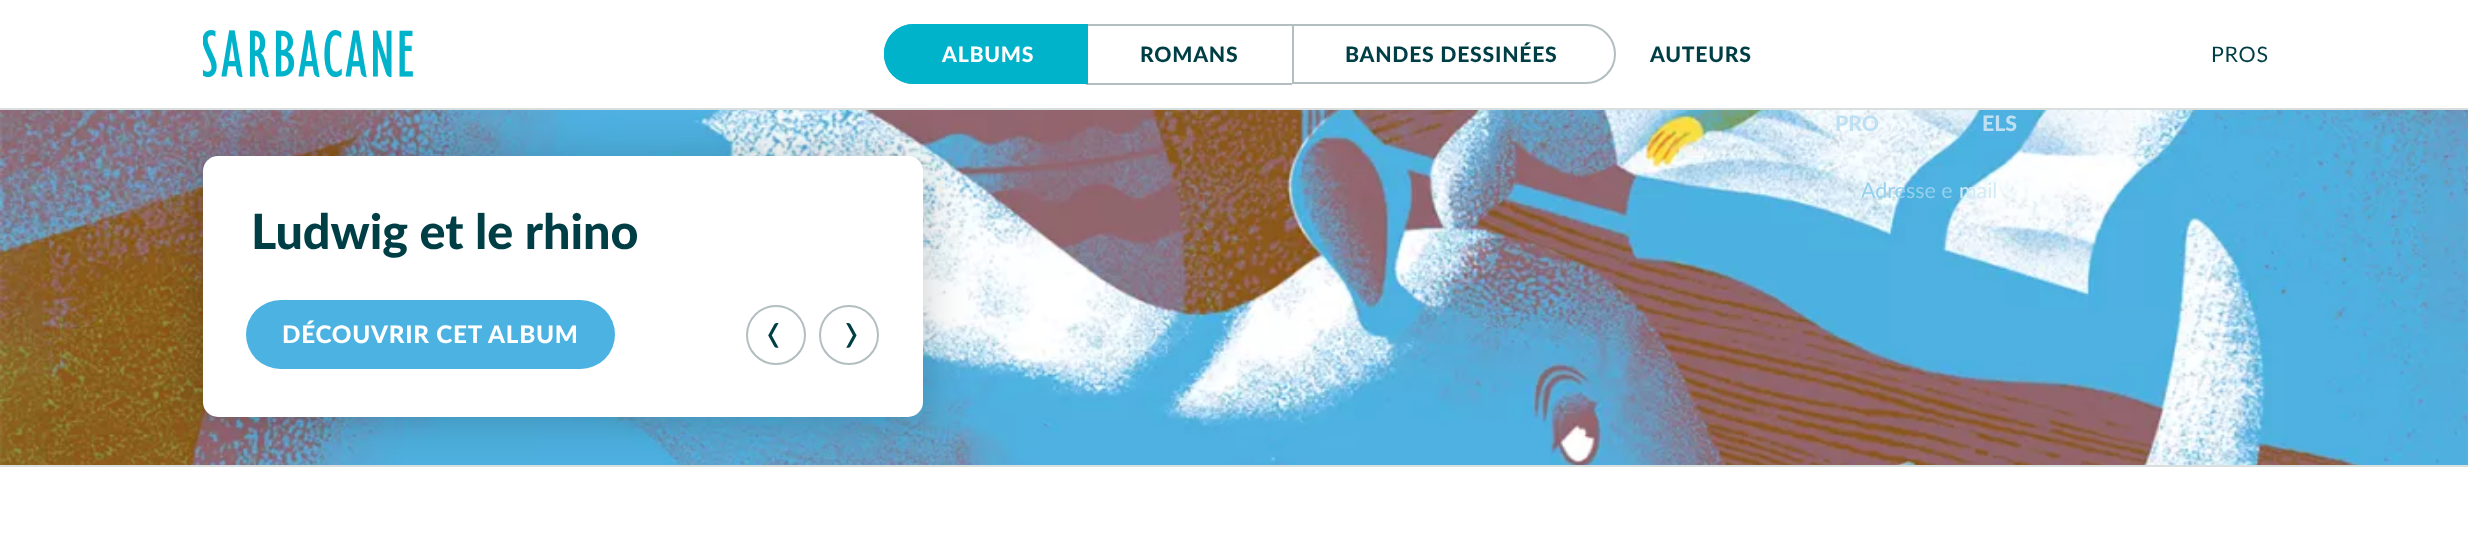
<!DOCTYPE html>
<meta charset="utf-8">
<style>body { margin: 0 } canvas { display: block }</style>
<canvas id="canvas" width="2468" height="550"></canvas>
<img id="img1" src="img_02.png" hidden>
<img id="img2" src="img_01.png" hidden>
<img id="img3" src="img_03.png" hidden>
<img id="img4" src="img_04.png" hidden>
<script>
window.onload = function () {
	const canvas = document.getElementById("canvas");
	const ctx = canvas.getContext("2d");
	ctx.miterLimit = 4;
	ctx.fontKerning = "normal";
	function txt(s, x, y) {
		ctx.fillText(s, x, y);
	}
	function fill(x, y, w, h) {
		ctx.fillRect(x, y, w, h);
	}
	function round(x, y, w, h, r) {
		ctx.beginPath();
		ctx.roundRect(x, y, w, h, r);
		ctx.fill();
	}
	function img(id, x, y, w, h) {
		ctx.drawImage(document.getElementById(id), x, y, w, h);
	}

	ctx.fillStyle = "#FFFFFF";
	fill(0, 0, 2468, 550);
	ctx.fillStyle = "#D9DFDF";
	fill(0, 465, 2468, 2);
	img("img1", 0, 110, 2468, 355);
	ctx.fillStyle = "rgba(0, 0, 0, 0.2)";
	ctx.filter = "blur(22.5px)";
	ctx.beginPath();
	ctx.roundRect(203, 159, 720, 261, 15);
	ctx.fill();
	ctx.filter = "none";
	ctx.fillStyle = "#D9DFDF";
	fill(0, 108, 2468, 2);
	img("img2", 203, 30, 210, 48);
	ctx.fillStyle = "#00B3CB";
	ctx.beginPath();
	ctx.roundRect(884, 24, 202, 60, [30, 0, 0, 30]);
	ctx.fill();
	ctx.beginPath();
	ctx.moveTo(914, 24);
	ctx.lineTo(1086, 24);
	ctx.lineTo(1086, 84);
	ctx.lineTo(914, 84);
	ctx.bezierCurveTo(897, 84, 884, 71, 884, 54);
	ctx.bezierCurveTo(884, 37, 897, 24, 914, 24);
	ctx.closePath();
	ctx.moveTo(914, 26);
	ctx.lineTo(1086, 26);
	ctx.lineTo(1086, 82);
	ctx.lineTo(914, 82);
	ctx.bezierCurveTo(898, 82, 885, 70, 885, 54);
	ctx.bezierCurveTo(885, 38, 898, 26, 914, 26);
	ctx.closePath();
	ctx.fill("evenodd");
	ctx.fillStyle = "#B2BEBF";
	fill(1086, 24, 206, 2);
	fill(1086, 83, 206, 2);
	ctx.fillStyle = "#00B3CB";
	fill(1086, 24, 2, 60);
	ctx.beginPath();
	ctx.roundRect(1293, 25, 322, 58, [0, 29, 29, 0]);
	ctx.strokeStyle = "#B2BEBF";
	ctx.lineWidth = 2;
	ctx.stroke();
	ctx.fillStyle = "#FFFFFF";
	round(203, 156, 720, 261, 15);
	ctx.fillStyle = "#4CB2E2";
	round(246, 300, 369, 69, 34.5);
	ctx.beginPath();
	ctx.arc(776, 335, 29, 0, Math.PI * 2);
	ctx.stroke();
	img("img3", 768, 323, 11, 25);
	ctx.beginPath();
	ctx.arc(849, 335, 29, 0, Math.PI * 2);
	ctx.stroke();
	img("img4", 846, 323, 11, 25);
	ctx.letterSpacing = "0.75px";
	ctx.font = "800 21px Lato";
	ctx.fillStyle = "#FFFFFF";
	txt("ALBUMS", 942, 62);
	ctx.fillStyle = "#003E46";
	txt("ROMANS", 1140, 62);
	txt("BANDES DESSINÉES", 1345, 62);
	txt("AUTEURS", 1650, 62);
	ctx.font = "21px Lato";
	txt("PROS", 2211, 62);
	ctx.letterSpacing = "0px";
	ctx.font = "800 21px Lato";
	ctx.fillStyle = "#BEE0F2";
	txt("PRO", 1835, 131);
	txt("ELS", 1982, 131);
	ctx.save();
	ctx.beginPath();
	ctx.rect(1862, 177, 355, 29);
	ctx.clip();
	ctx.font = "21px Lato";
	ctx.fillStyle = "#95D0EC";
	txt("Adresse e", 1861, 198);
	ctx.restore();
	ctx.font = "21px Lato";
	ctx.fillStyle = "#D3EBF5";
	txt("mail", 1959, 198);
	ctx.font = "800 48px Lato";
	ctx.fillStyle = "#003E46";
	txt("Ludwig et le rhino", 251, 249);
	ctx.letterSpacing = "0.75px";
	ctx.font = "800 24px Lato";
	ctx.fillStyle = "#FFFFFF";
	txt("DÉCOUVRIR CET ALBUM", 282, 343);
};
</script>
